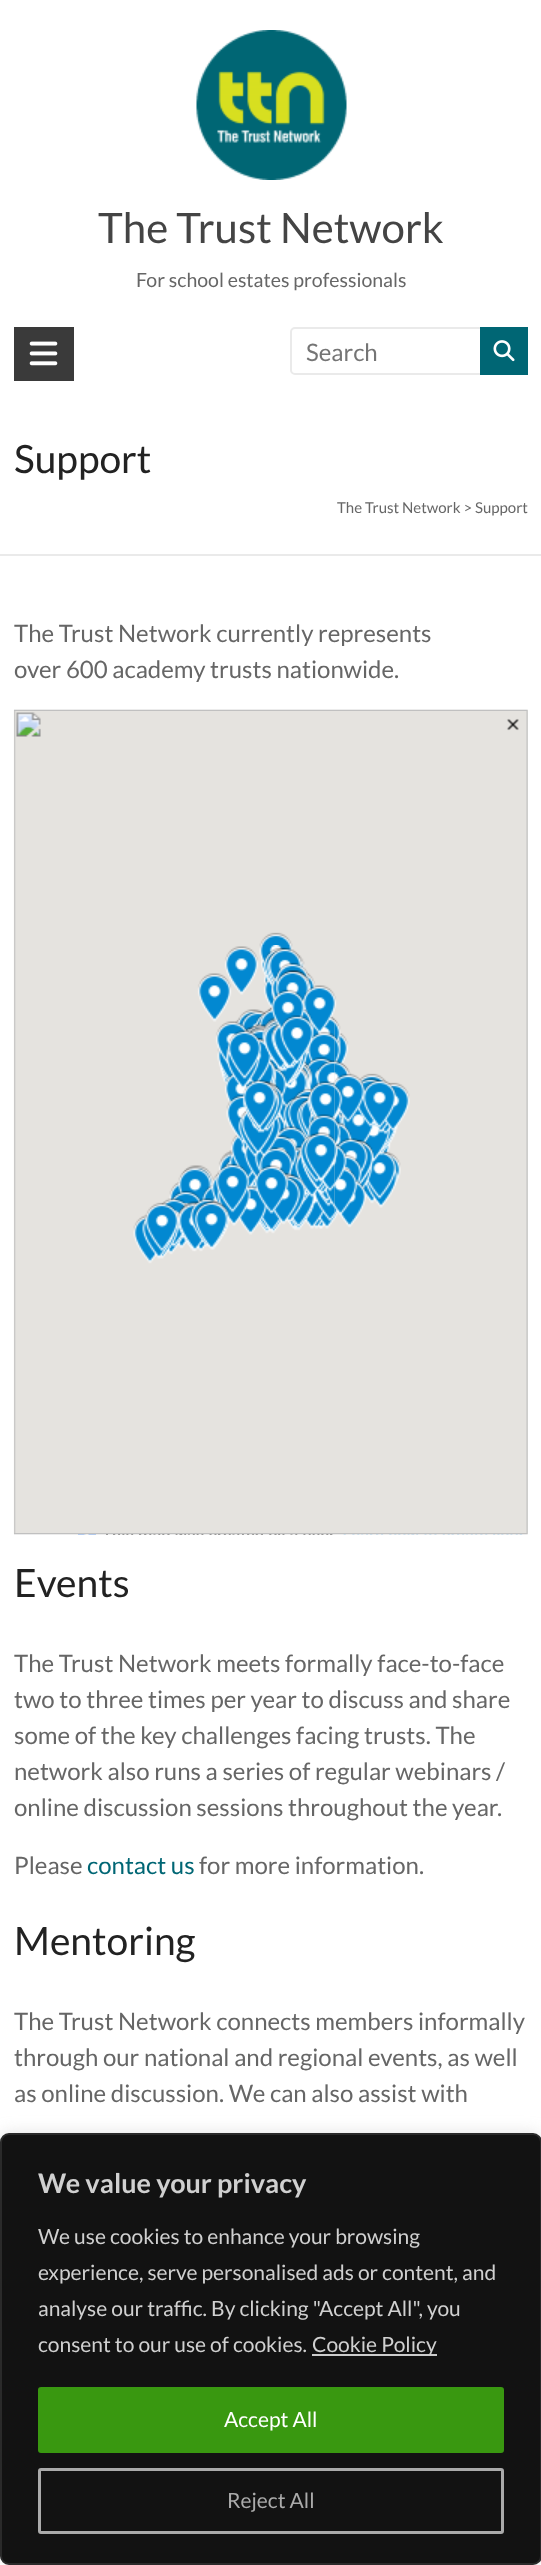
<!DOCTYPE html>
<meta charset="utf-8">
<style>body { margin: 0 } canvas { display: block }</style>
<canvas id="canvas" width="541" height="2565"></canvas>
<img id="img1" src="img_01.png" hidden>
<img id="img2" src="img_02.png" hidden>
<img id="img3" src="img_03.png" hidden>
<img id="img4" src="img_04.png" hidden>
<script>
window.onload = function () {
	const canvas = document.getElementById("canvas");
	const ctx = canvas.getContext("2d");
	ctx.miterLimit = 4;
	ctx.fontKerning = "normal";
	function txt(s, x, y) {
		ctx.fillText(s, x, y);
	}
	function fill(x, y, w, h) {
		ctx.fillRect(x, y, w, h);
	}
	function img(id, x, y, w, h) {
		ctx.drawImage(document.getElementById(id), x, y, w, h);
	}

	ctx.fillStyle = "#FFFFFF";
	fill(0, 0, 541, 2565);
	img("img1", 196, 30, 151, 150);
	ctx.fillStyle = "#3A3A3A";
	fill(14, 327, 60, 54);
	img("img2", 29, 341, 29, 25);
	ctx.beginPath();
	ctx.roundRect(291, 328, 193, 46, 4);
	ctx.strokeStyle = "#EAEAEA";
	ctx.lineWidth = 2;
	ctx.stroke();
	ctx.fillStyle = "#006674";
	fill(480, 327, 48, 48);
	img("img3", 493, 340, 22, 22);
	ctx.fillStyle = "#EAEAEA";
	fill(0, 554, 541, 2);
	img("img4", 13, 709, 515, 826);
	ctx.fillStyle = "rgba(172, 171, 171, 0.3)";
	ctx.filter = "blur(7.5px)";
	ctx.beginPath();
	ctx.roundRect(0, 2132, 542, 432, 9);
	ctx.fill();
	ctx.filter = "none";
	ctx.fillStyle = "#121212";
	ctx.beginPath();
	ctx.roundRect(1, 2134, 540, 430, 8);
	ctx.fill();
	ctx.strokeStyle = "#2A2A2A";
	ctx.stroke();
	ctx.fillStyle = "#CCCCCC";
	fill(312, 2354, 125, 2);
	ctx.fillStyle = "#399810";
	ctx.beginPath();
	ctx.roundRect(39.5, 2388.5, 463, 63, 1.5);
	ctx.fill();
	ctx.strokeStyle = "#399810";
	ctx.lineWidth = 3;
	ctx.stroke();
	ctx.beginPath();
	ctx.roundRect(39.5, 2469.5, 463, 63, 1.5);
	ctx.strokeStyle = "#AAAAAA";
	ctx.stroke();
	ctx.font = "42px Lato";
	ctx.fillStyle = "#444444";
	txt("The Trust Network", 98, 243);
	ctx.font = "19.5px Lato";
	ctx.fillStyle = "#666666";
	txt("For school estates professionals", 136, 287);
	ctx.font = "24px Lato";
	ctx.fillStyle = "#757575";
	txt("Search", 306, 361);
	ctx.font = "39px Lato";
	ctx.fillStyle = "#222222";
	txt("Support", 14, 473);
	ctx.font = "15px Lato";
	ctx.fillStyle = "#666666";
	txt("The Trust Network > Support", 337, 513);
	ctx.font = "24px Lato";
	txt("The Trust Network currently represents", 14, 642);
	txt("over 600 academy trusts nationwide.", 14, 678);
	ctx.font = "39px Lato";
	ctx.fillStyle = "#222222";
	txt("Events", 14, 1597);
	ctx.font = "24px Lato";
	ctx.fillStyle = "#666666";
	txt("The Trust Network meets formally face-to-face", 14, 1672);
	txt("two to three times per year to discuss and share", 14, 1708);
	txt("some of the key challenges facing trusts. The", 14, 1744);
	txt("network also runs a series of regular webinars /", 14, 1780);
	txt("online discussion sessions throughout the year.", 14, 1816);
	txt("Please", 14, 1874);
	ctx.fillStyle = "#006674";
	txt("contact us", 87, 1874);
	ctx.fillStyle = "#666666";
	txt("for more information.", 199, 1874);
	ctx.font = "39px Lato";
	ctx.fillStyle = "#222222";
	txt("Mentoring", 14, 1955);
	ctx.font = "24px Lato";
	ctx.fillStyle = "#666666";
	txt("The Trust Network connects members informally", 14, 2030);
	txt("through our national and regional events, as well", 14, 2066);
	txt("as online discussion. We can also assist with", 14, 2102);
	ctx.font = "bold 27px Lato";
	ctx.fillStyle = "#D0D0D0";
	txt("We value your privacy", 38, 2193);
	ctx.font = "21px Lato";
	txt("We use cookies to enhance your browsing", 38, 2244);
	txt("experience, serve personalised ads or content, and", 38, 2280);
	txt("analyse our traffic. By clicking \"Accept All\", you", 38, 2316);
	txt("consent to our use of cookies.", 38, 2352);
	txt("Cookie Policy", 312, 2352);
	ctx.fillStyle = "#FFFFFF";
	txt("Accept All", 224, 2427);
	ctx.fillStyle = "#AAAAAA";
	txt("Reject All", 227, 2508);
};
</script>
